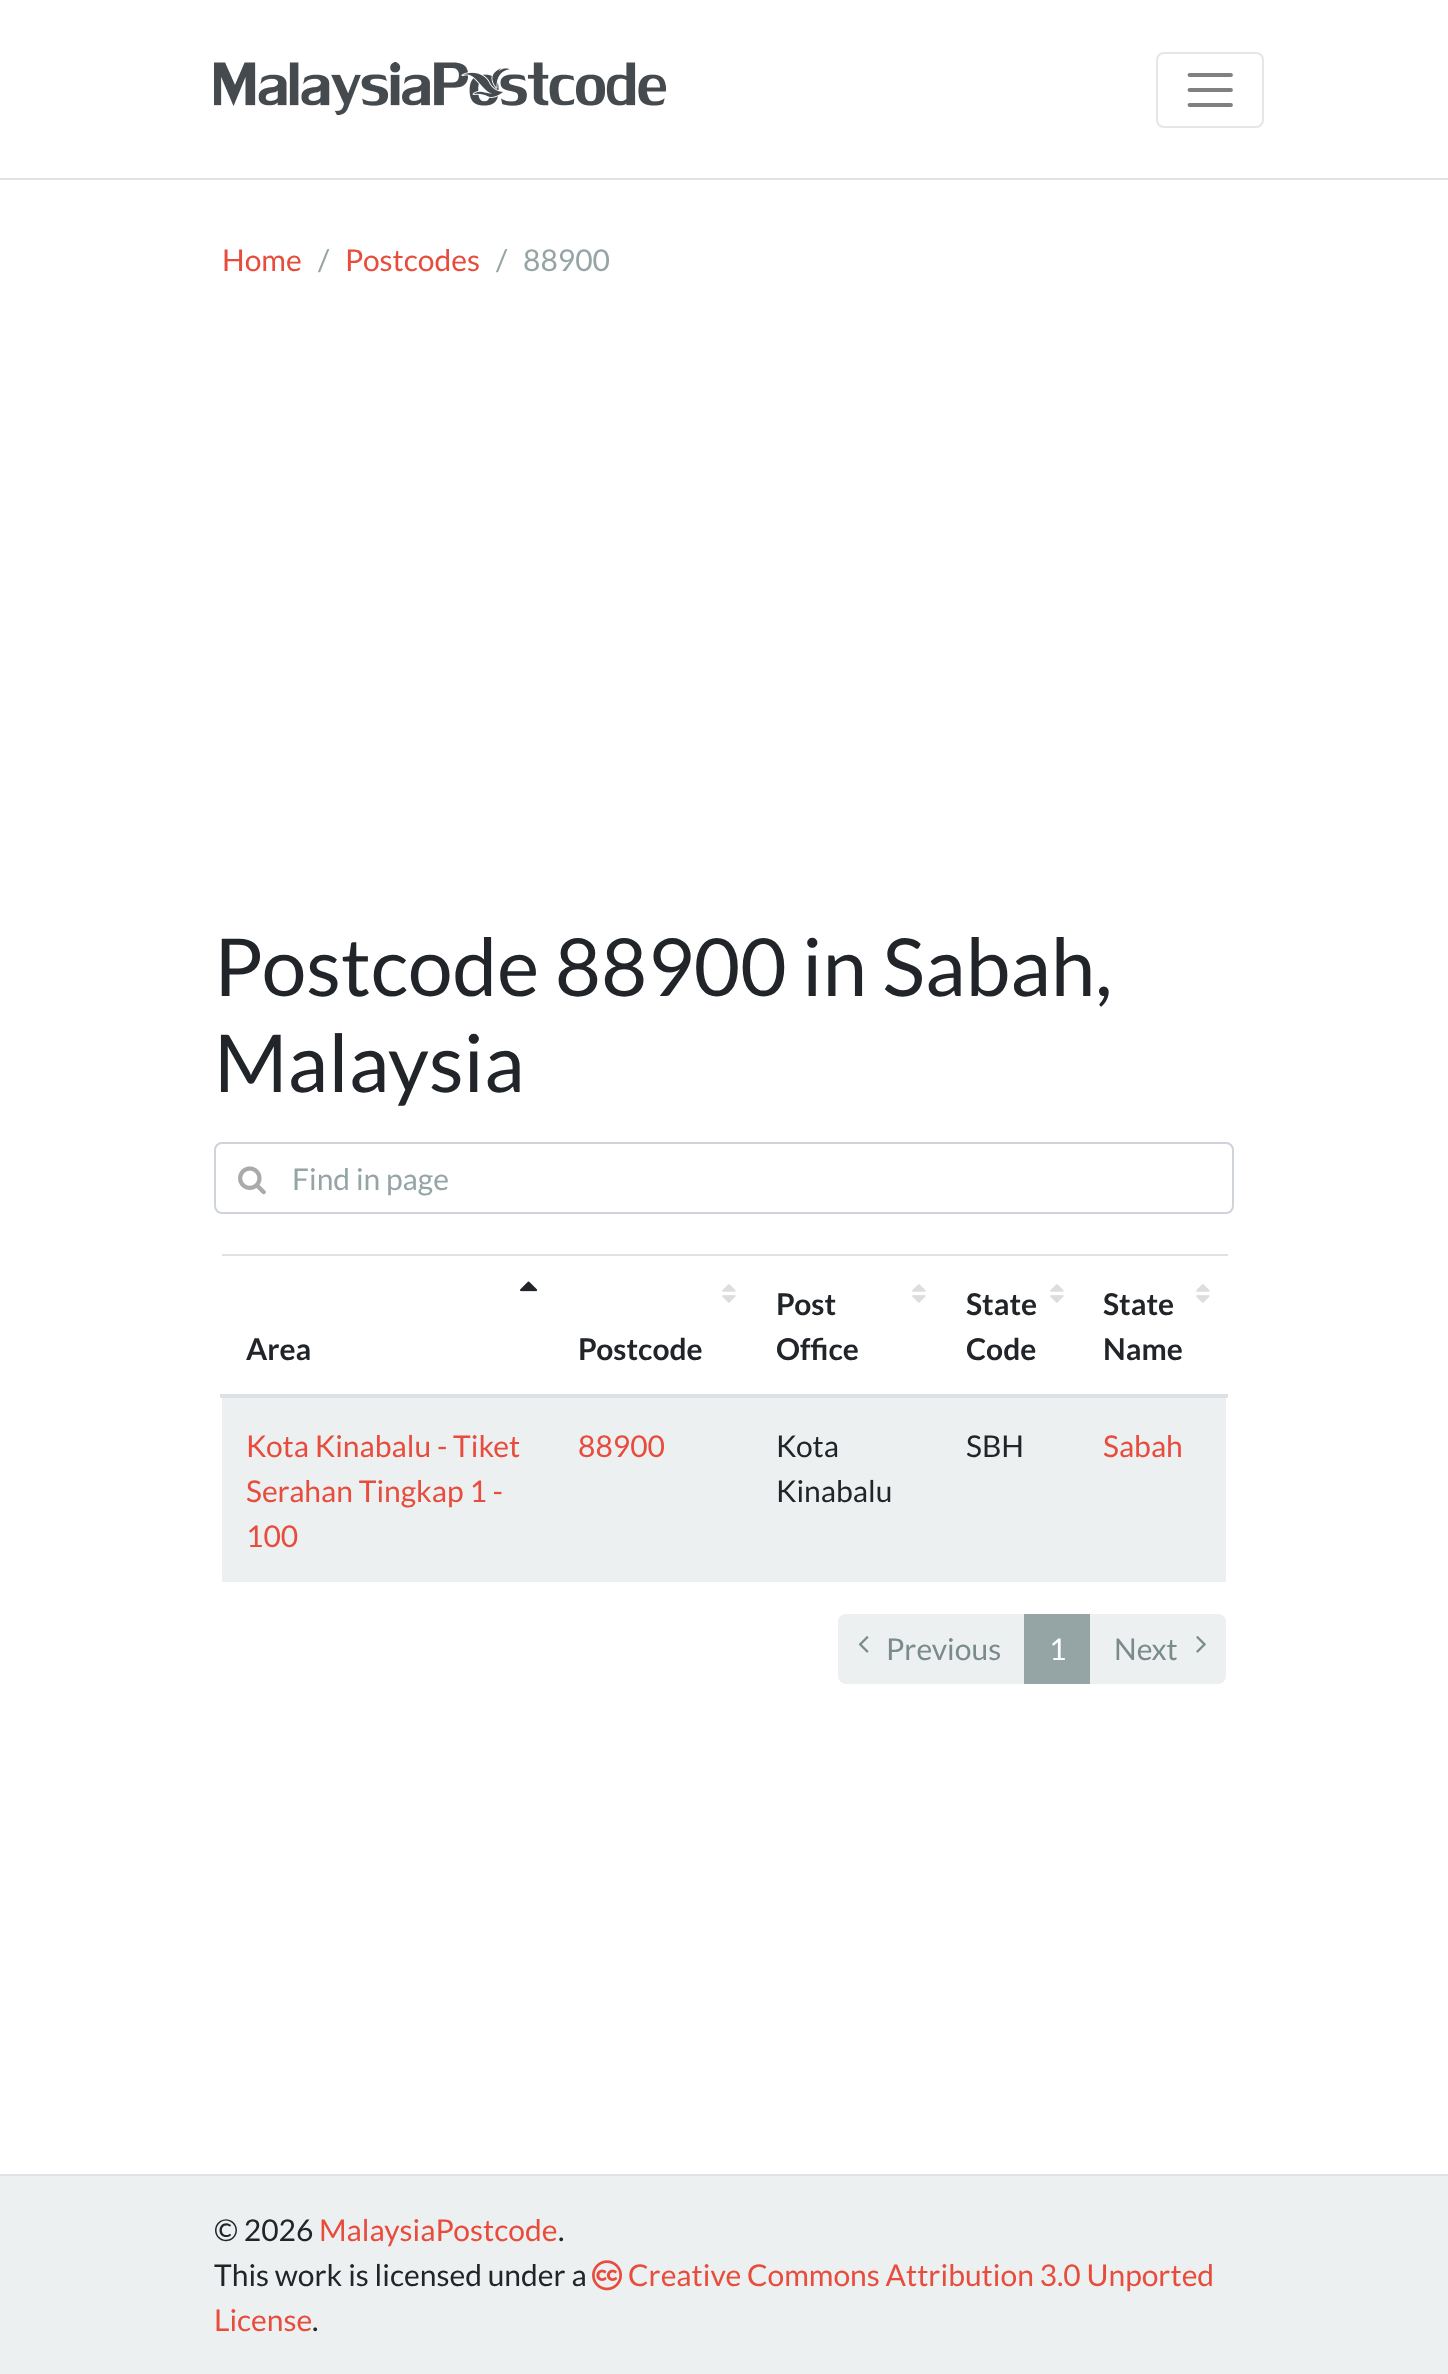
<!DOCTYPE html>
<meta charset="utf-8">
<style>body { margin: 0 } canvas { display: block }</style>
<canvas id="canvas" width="1448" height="2374"></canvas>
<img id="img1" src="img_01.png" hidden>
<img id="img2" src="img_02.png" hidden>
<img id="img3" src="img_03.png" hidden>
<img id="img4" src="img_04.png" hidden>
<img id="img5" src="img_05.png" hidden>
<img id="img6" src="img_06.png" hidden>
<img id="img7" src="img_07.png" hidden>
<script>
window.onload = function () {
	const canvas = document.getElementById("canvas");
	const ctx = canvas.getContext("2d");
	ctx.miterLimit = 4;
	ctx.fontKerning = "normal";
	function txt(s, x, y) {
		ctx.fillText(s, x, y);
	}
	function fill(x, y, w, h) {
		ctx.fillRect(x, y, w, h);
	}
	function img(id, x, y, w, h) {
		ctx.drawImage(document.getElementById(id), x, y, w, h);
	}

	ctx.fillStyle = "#FFFFFF";
	fill(0, 0, 1448, 2374);
	ctx.fillStyle = "#DEE2E6";
	fill(0, 178, 1448, 2);
	img("img1", 214, 62, 452, 53);
	ctx.beginPath();
	ctx.roundRect(1157, 53, 106, 74, 7);
	ctx.strokeStyle = "#E6E6E6";
	ctx.lineWidth = 2;
	ctx.stroke();
	ctx.beginPath();
	ctx.moveTo(1189.5, 75);
	ctx.lineTo(1231, 75);
	ctx.moveTo(1189.5, 90);
	ctx.lineTo(1231, 90);
	ctx.moveTo(1189.5, 105);
	ctx.lineTo(1231, 105);
	ctx.strokeStyle = "#808080";
	ctx.lineWidth = 3.8;
	ctx.lineCap = "round";
	ctx.stroke();
	ctx.beginPath();
	ctx.roundRect(215, 1143, 1018, 70, 7);
	ctx.strokeStyle = "#CED4DA";
	ctx.lineWidth = 2;
	ctx.stroke();
	img("img2", 238, 1166, 28, 29);
	img("img3", 520, 1281, 18, 11);
	img("img4", 722, 1284, 14, 19);
	img("img4", 912, 1284, 14, 19);
	img("img4", 1050, 1284, 14, 19);
	fill(222, 1254, 1006, 2);
	fill(220, 1394, 1008, 4);
	img("img4", 1196, 1284, 14, 19);
	ctx.fillStyle = "#ECF0F1";
	fill(222, 1398, 1004, 184);
	ctx.beginPath();
	ctx.roundRect(838, 1614, 186, 70, [8, 0, 0, 8]);
	ctx.fill();
	img("img5", 858, 1636, 11, 17);
	ctx.fillStyle = "#95A5A6";
	fill(1024, 1614, 66, 70);
	ctx.fillStyle = "#ECF0F1";
	ctx.beginPath();
	ctx.roundRect(1090, 1614, 136, 70, [0, 8, 8, 0]);
	ctx.fill();
	img("img6", 1196, 1636, 10, 17);
	fill(0, 2176, 1448, 198);
	ctx.fillStyle = "#DEE2E6";
	fill(0, 2174, 1448, 2);
	img("img7", 592, 2260, 30, 31);
	ctx.font = "30px Lato";
	ctx.fillStyle = "#E74C3C";
	txt("Home", 222, 271);
	ctx.fillStyle = "#95A5A6";
	txt("/", 318, 271);
	ctx.fillStyle = "#E74C3C";
	txt("Postcodes", 345, 271);
	ctx.fillStyle = "#95A5A6";
	txt("/", 496, 271);
	txt("88900", 523, 271);
	ctx.font = "80px Lato";
	ctx.fillStyle = "#212529";
	txt("Postcode 88900 in Sabah,", 214, 996);
	txt("Malaysia", 214, 1092);
	ctx.font = "30px Lato";
	ctx.fillStyle = "#95A5A6";
	txt("Find in page", 292, 1190);
	ctx.font = "bold 30px Lato";
	ctx.fillStyle = "#212529";
	txt("Area", 246, 1360);
	txt("Postcode", 578, 1360);
	txt("Post", 776, 1315);
	txt("Office", 776, 1360);
	txt("State", 966, 1315);
	txt("Code", 966, 1360);
	txt("State", 1103, 1315);
	txt("Name", 1103, 1360);
	ctx.font = "30px Lato";
	ctx.fillStyle = "#E74C3C";
	txt("Kota Kinabalu - Tiket", 246, 1457);
	txt("Serahan Tingkap 1 -", 246, 1502);
	txt("100", 246, 1547);
	txt("88900", 578, 1457);
	ctx.fillStyle = "#212529";
	txt("Kota", 776, 1457);
	txt("Kinabalu", 776, 1502);
	txt("SBH", 966, 1457);
	ctx.fillStyle = "#E74C3C";
	txt("Sabah", 1103, 1457);
	ctx.fillStyle = "#7B8A8B";
	txt("Previous", 886, 1660);
	ctx.fillStyle = "#FFFFFF";
	txt("1", 1049, 1660);
	ctx.fillStyle = "#7B8A8B";
	txt("Next", 1114, 1660);
	ctx.fillStyle = "#212529";
	txt("© 2026", 214, 2241);
	ctx.fillStyle = "#E74C3C";
	txt("MalaysiaPostcode", 319, 2241);
	ctx.fillStyle = "#212529";
	txt(".", 558, 2241);
	txt("This work is licensed under a", 214, 2286);
	ctx.fillStyle = "#E74C3C";
	txt("Creative Commons Attribution 3.0 Unported", 628, 2286);
	txt("License", 214, 2331);
	ctx.fillStyle = "#212529";
	txt(".", 312, 2331);
};
</script>
